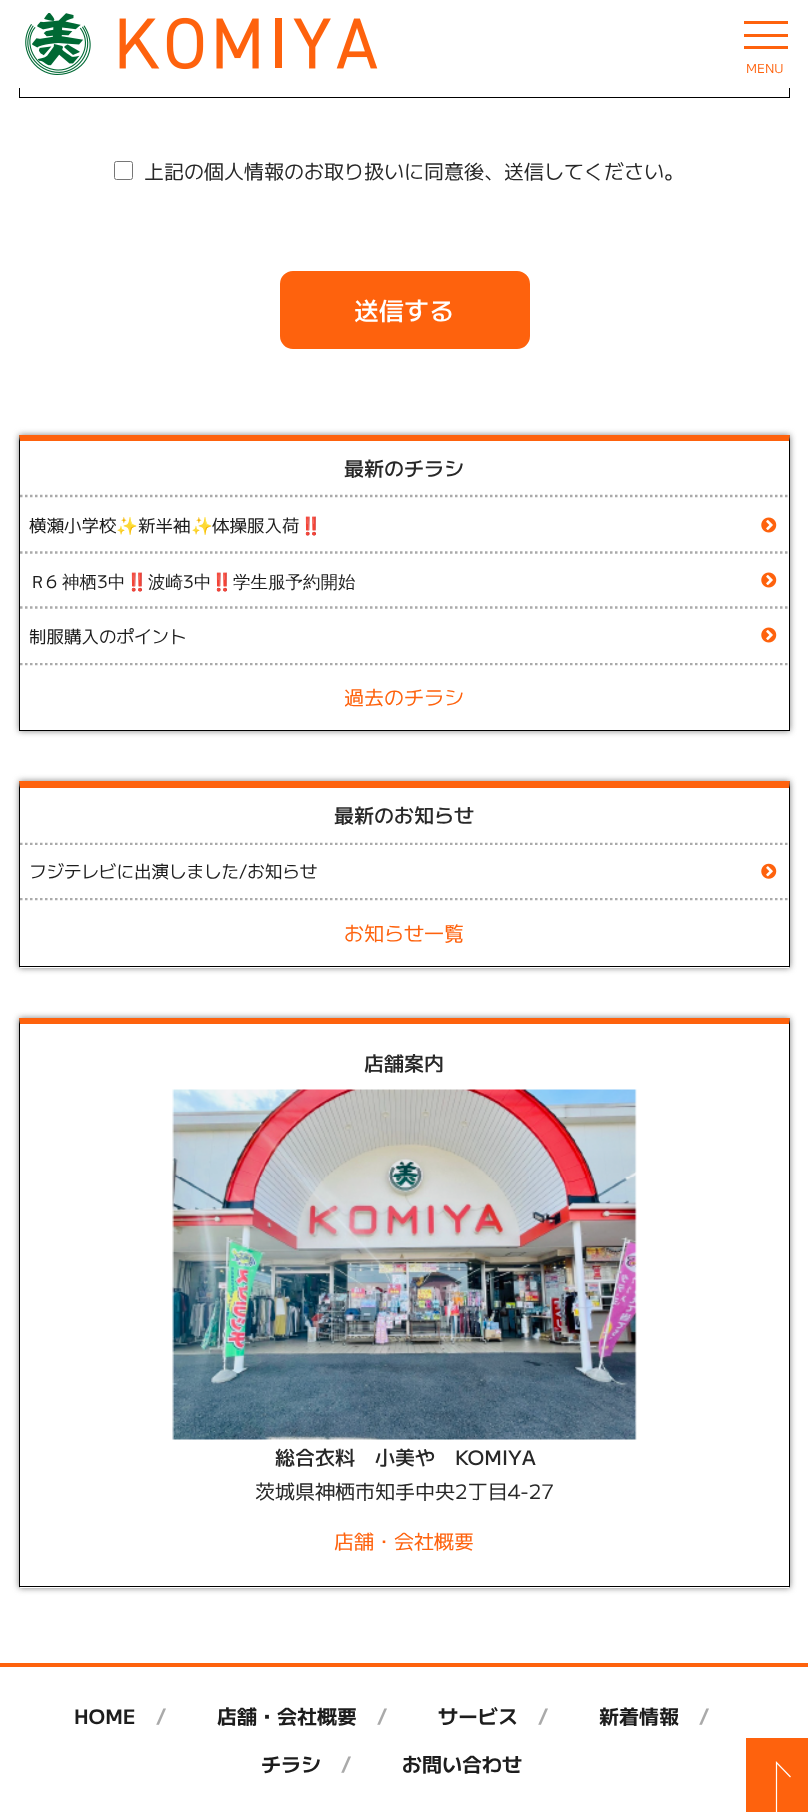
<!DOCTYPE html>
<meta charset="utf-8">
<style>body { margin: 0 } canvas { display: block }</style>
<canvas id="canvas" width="808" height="1812"></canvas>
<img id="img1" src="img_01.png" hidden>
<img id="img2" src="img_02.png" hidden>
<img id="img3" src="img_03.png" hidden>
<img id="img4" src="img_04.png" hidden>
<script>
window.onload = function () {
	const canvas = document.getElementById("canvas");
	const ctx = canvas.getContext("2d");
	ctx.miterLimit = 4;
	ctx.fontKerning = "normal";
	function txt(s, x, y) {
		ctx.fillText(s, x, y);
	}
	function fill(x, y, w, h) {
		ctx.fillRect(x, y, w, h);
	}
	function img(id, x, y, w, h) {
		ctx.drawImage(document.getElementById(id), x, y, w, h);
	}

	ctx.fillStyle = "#FFFFFF";
	fill(0, 0, 808, 1812);
	ctx.strokeStyle = "#000000";
	ctx.strokeRect(19.5, -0.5, 770, 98);
	fill(19, 0, 771, 88);
	img("img1", 25, 13, 353, 62);
	ctx.fillStyle = "#FE620D";
	fill(744, 21, 44, 3);
	fill(744, 34, 44, 3);
	fill(744, 46, 44, 3);
	ctx.beginPath();
	ctx.roundRect(114.5, 161.5, 18, 18, 2);
	ctx.strokeStyle = "#767676";
	ctx.stroke();
	ctx.beginPath();
	ctx.roundRect(282, 273, 246, 74, 11);
	ctx.fill();
	ctx.strokeStyle = "#FE620D";
	ctx.lineWidth = 4;
	ctx.stroke();
	ctx.save();
	ctx.beginPath();
	ctx.moveTo(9, 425);
	ctx.lineTo(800, 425);
	ctx.lineTo(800, 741);
	ctx.lineTo(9, 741);
	ctx.closePath();
	ctx.moveTo(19, 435);
	ctx.lineTo(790, 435);
	ctx.lineTo(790, 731);
	ctx.lineTo(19, 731);
	ctx.closePath();
	ctx.clip("evenodd");
	ctx.fillStyle = "#808080";
	ctx.filter = "blur(3px)";
	ctx.beginPath();
	ctx.rect(19, 435, 771, 296);
	ctx.fill();
	ctx.filter = "none";
	ctx.restore();
	ctx.beginPath();
	ctx.moveTo(19, 435);
	ctx.lineTo(790, 435);
	ctx.lineTo(789, 441);
	ctx.lineTo(20, 441);
	ctx.closePath();
	ctx.fill();
	ctx.fillStyle = "#000000";
	ctx.beginPath();
	ctx.moveTo(790, 435);
	ctx.lineTo(790, 731);
	ctx.lineTo(789, 730);
	ctx.lineTo(789, 441);
	ctx.closePath();
	ctx.fill();
	fill(19, 730, 771, 1);
	ctx.beginPath();
	ctx.moveTo(19, 731);
	ctx.lineTo(19, 435);
	ctx.lineTo(20, 441);
	ctx.lineTo(20, 730);
	ctx.closePath();
	ctx.fill();
	ctx.beginPath();
	ctx.moveTo(20, 496);
	ctx.lineTo(789, 496);
	ctx.strokeStyle = "#AAAAAA";
	ctx.lineWidth = 2.5;
	ctx.setLineDash([2.5, 2.5]);
	ctx.stroke();
	ctx.beginPath();
	ctx.moveTo(20, 552.5);
	ctx.lineTo(789, 552.5);
	ctx.stroke();
	img("img2", 761, 517, 16, 16);
	ctx.beginPath();
	ctx.moveTo(20, 607.5);
	ctx.lineTo(789, 607.5);
	ctx.stroke();
	img("img2", 761, 572, 16, 16);
	ctx.beginPath();
	ctx.moveTo(20, 664);
	ctx.lineTo(789, 664);
	ctx.stroke();
	ctx.fillStyle = "#FFFFFF";
	fill(20, 662, 768, 1);
	img("img2", 761, 627, 16, 16);
	ctx.save();
	ctx.beginPath();
	ctx.moveTo(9, 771);
	ctx.lineTo(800, 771);
	ctx.lineTo(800, 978);
	ctx.lineTo(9, 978);
	ctx.closePath();
	ctx.moveTo(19, 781);
	ctx.lineTo(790, 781);
	ctx.lineTo(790, 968);
	ctx.lineTo(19, 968);
	ctx.closePath();
	ctx.clip("evenodd");
	ctx.fillStyle = "#808080";
	ctx.filter = "blur(3px)";
	ctx.beginPath();
	ctx.rect(19, 781, 771, 187);
	ctx.fill();
	ctx.filter = "none";
	ctx.restore();
	ctx.fillStyle = "#FE620D";
	ctx.beginPath();
	ctx.moveTo(19, 781);
	ctx.lineTo(790, 781);
	ctx.lineTo(789, 788);
	ctx.lineTo(20, 788);
	ctx.closePath();
	ctx.fill();
	ctx.fillStyle = "#000000";
	ctx.beginPath();
	ctx.moveTo(790, 781);
	ctx.lineTo(790, 968);
	ctx.lineTo(789, 966);
	ctx.lineTo(789, 788);
	ctx.closePath();
	ctx.fill();
	fill(19, 966, 771, 1);
	ctx.beginPath();
	ctx.moveTo(19, 968);
	ctx.lineTo(19, 781);
	ctx.lineTo(20, 788);
	ctx.lineTo(20, 966);
	ctx.closePath();
	ctx.fill();
	ctx.beginPath();
	ctx.moveTo(20, 844);
	ctx.lineTo(789, 844);
	ctx.stroke();
	ctx.beginPath();
	ctx.moveTo(20, 899);
	ctx.lineTo(789, 899);
	ctx.stroke();
	ctx.fillStyle = "#FFFFFF";
	fill(20, 845, 768, 53);
	img("img3", 761, 863, 16, 16);
	ctx.save();
	ctx.beginPath();
	ctx.moveTo(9, 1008);
	ctx.lineTo(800, 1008);
	ctx.lineTo(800, 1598);
	ctx.lineTo(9, 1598);
	ctx.closePath();
	ctx.moveTo(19, 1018);
	ctx.lineTo(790, 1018);
	ctx.lineTo(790, 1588);
	ctx.lineTo(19, 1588);
	ctx.closePath();
	ctx.clip("evenodd");
	ctx.fillStyle = "#808080";
	ctx.filter = "blur(3px)";
	ctx.beginPath();
	ctx.rect(19, 1018, 771, 570);
	ctx.fill();
	ctx.filter = "none";
	ctx.restore();
	ctx.fillStyle = "#FE620D";
	ctx.beginPath();
	ctx.moveTo(19, 1018);
	ctx.lineTo(790, 1018);
	ctx.lineTo(789, 1024);
	ctx.lineTo(20, 1024);
	ctx.closePath();
	ctx.fill();
	ctx.fillStyle = "#000000";
	ctx.beginPath();
	ctx.moveTo(790, 1018);
	ctx.lineTo(790, 1588);
	ctx.lineTo(789, 1586);
	ctx.lineTo(789, 1024);
	ctx.closePath();
	ctx.fill();
	fill(19, 1586, 771, 1);
	ctx.beginPath();
	ctx.moveTo(19, 1588);
	ctx.lineTo(19, 1018);
	ctx.lineTo(20, 1024);
	ctx.lineTo(20, 1586);
	ctx.closePath();
	ctx.fill();
	img("img4", 172, 1089, 465, 351);
	ctx.fillStyle = "#FE620D";
	fill(0, 1663, 808, 4);
	fill(746, 1738, 62, 74);
	ctx.beginPath();
	ctx.moveTo(776.5, 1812.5);
	ctx.lineTo(776.5, 1762.5);
	ctx.lineTo(790.5, 1777);
	ctx.strokeStyle = "#FFFFFF";
	ctx.lineWidth = 1.2;
	ctx.setLineDash([]);
	ctx.stroke();
	ctx.font = "12.5px 'M PLUS 1'";
	txt("MENU", 746, 73);
	ctx.font = "20px 'M PLUS 1'";
	ctx.fillStyle = "#282828";
	txt("上記の個人情報のお取り扱いに同意後、送信してください。", 144, 179);
	ctx.font = "500 25px 'M PLUS 1'";
	ctx.fillStyle = "#FFFFFF";
	txt("送信する", 354, 320);
	ctx.font = "500 20px 'M PLUS 1'";
	ctx.fillStyle = "#282828";
	txt("最新のチラシ", 344, 476);
	ctx.font = "17.5px 'M PLUS 1'";
	ctx.fillStyle = "#1D1D1D";
	txt("横瀬小学校", 29, 532);
	ctx.font = "17.5px Noto Color Emoji";
	txt("✨", 116, 532);
	ctx.font = "17.5px 'M PLUS 1'";
	txt("新半袖", 138, 532);
	ctx.font = "17.5px Noto Color Emoji";
	txt("✨", 191, 532);
	ctx.font = "17.5px 'M PLUS 1'";
	txt("体操服入荷", 212, 532);
	ctx.font = "17.5px Noto Color Emoji";
	txt("‼️", 300, 532);
	ctx.font = "500 17.5px WenQuanYi Zen Hei";
	txt("Ｒ", 29, 588);
	ctx.font = "17.5px 'M PLUS 1'";
	txt("6", 46, 588);
	ctx.font = "500 17.5px WenQuanYi Zen Hei";
	txt("神栖", 62, 588);
	ctx.font = "17.5px 'M PLUS 1'";
	txt("3", 97, 588);
	ctx.font = "500 17.5px WenQuanYi Zen Hei";
	txt("中", 108, 588);
	ctx.font = "17.5px 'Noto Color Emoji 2'";
	txt("‼️", 126, 588);
	ctx.font = "500 17.5px WenQuanYi Zen Hei";
	txt("波崎", 148, 588);
	ctx.font = "17.5px 'M PLUS 1'";
	txt("3", 183, 588);
	ctx.font = "500 17.5px WenQuanYi Zen Hei";
	txt("中", 194, 588);
	ctx.font = "17.5px 'Noto Color Emoji 2'";
	txt("‼️", 211, 588);
	ctx.font = "500 17.5px WenQuanYi Zen Hei";
	txt("学生服予約開始", 233, 588);
	ctx.font = "17.5px 'M PLUS 1'";
	txt("制服購入のポイント", 29, 643);
	ctx.font = "20px 'M PLUS 1'";
	ctx.fillStyle = "#FE620D";
	txt("過去のチラシ", 344, 705);
	ctx.font = "500 20px 'M PLUS 1'";
	ctx.fillStyle = "#282828";
	txt("最新のお知らせ", 334, 823);
	ctx.font = "17.5px 'M PLUS 1'";
	ctx.fillStyle = "#1D1D1D";
	txt("フジテレビに出演しました/お知らせ", 29, 878);
	ctx.font = "20px 'M PLUS 1'";
	ctx.fillStyle = "#FE620D";
	txt("お知らせ一覧", 344, 941);
	ctx.font = "500 20px 'M PLUS 1'";
	ctx.fillStyle = "#282828";
	txt("店舗案内", 364, 1071);
	txt("総合衣料　小美や　KOMIYA", 275, 1465);
	ctx.font = "20px 'M PLUS 1'";
	txt("茨城県神栖市知手中央2丁目4-27", 255, 1499);
	ctx.fillStyle = "#FE620D";
	txt("店舗・会社概要", 334, 1549);
	ctx.font = "bold 20px 'M PLUS 1'";
	ctx.fillStyle = "#1D1D1D";
	txt("HOME", 74, 1724);
	ctx.fillStyle = "#AAAAAA";
	txt("/", 156, 1724);
	ctx.fillStyle = "#1D1D1D";
	txt("店舗・会社概要", 217, 1724);
	ctx.fillStyle = "#AAAAAA";
	txt("/", 377, 1724);
	ctx.fillStyle = "#1D1D1D";
	txt("サービス", 438, 1724);
	ctx.fillStyle = "#AAAAAA";
	txt("/", 538, 1724);
	ctx.fillStyle = "#1D1D1D";
	txt("新着情報", 599, 1724);
	ctx.fillStyle = "#AAAAAA";
	txt("/", 699, 1724);
	ctx.fillStyle = "#1D1D1D";
	txt("チラシ", 261, 1772);
	ctx.fillStyle = "#AAAAAA";
	txt("/", 341, 1772);
	ctx.fillStyle = "#1D1D1D";
	txt("お問い合わせ", 402, 1772);
};
</script>
